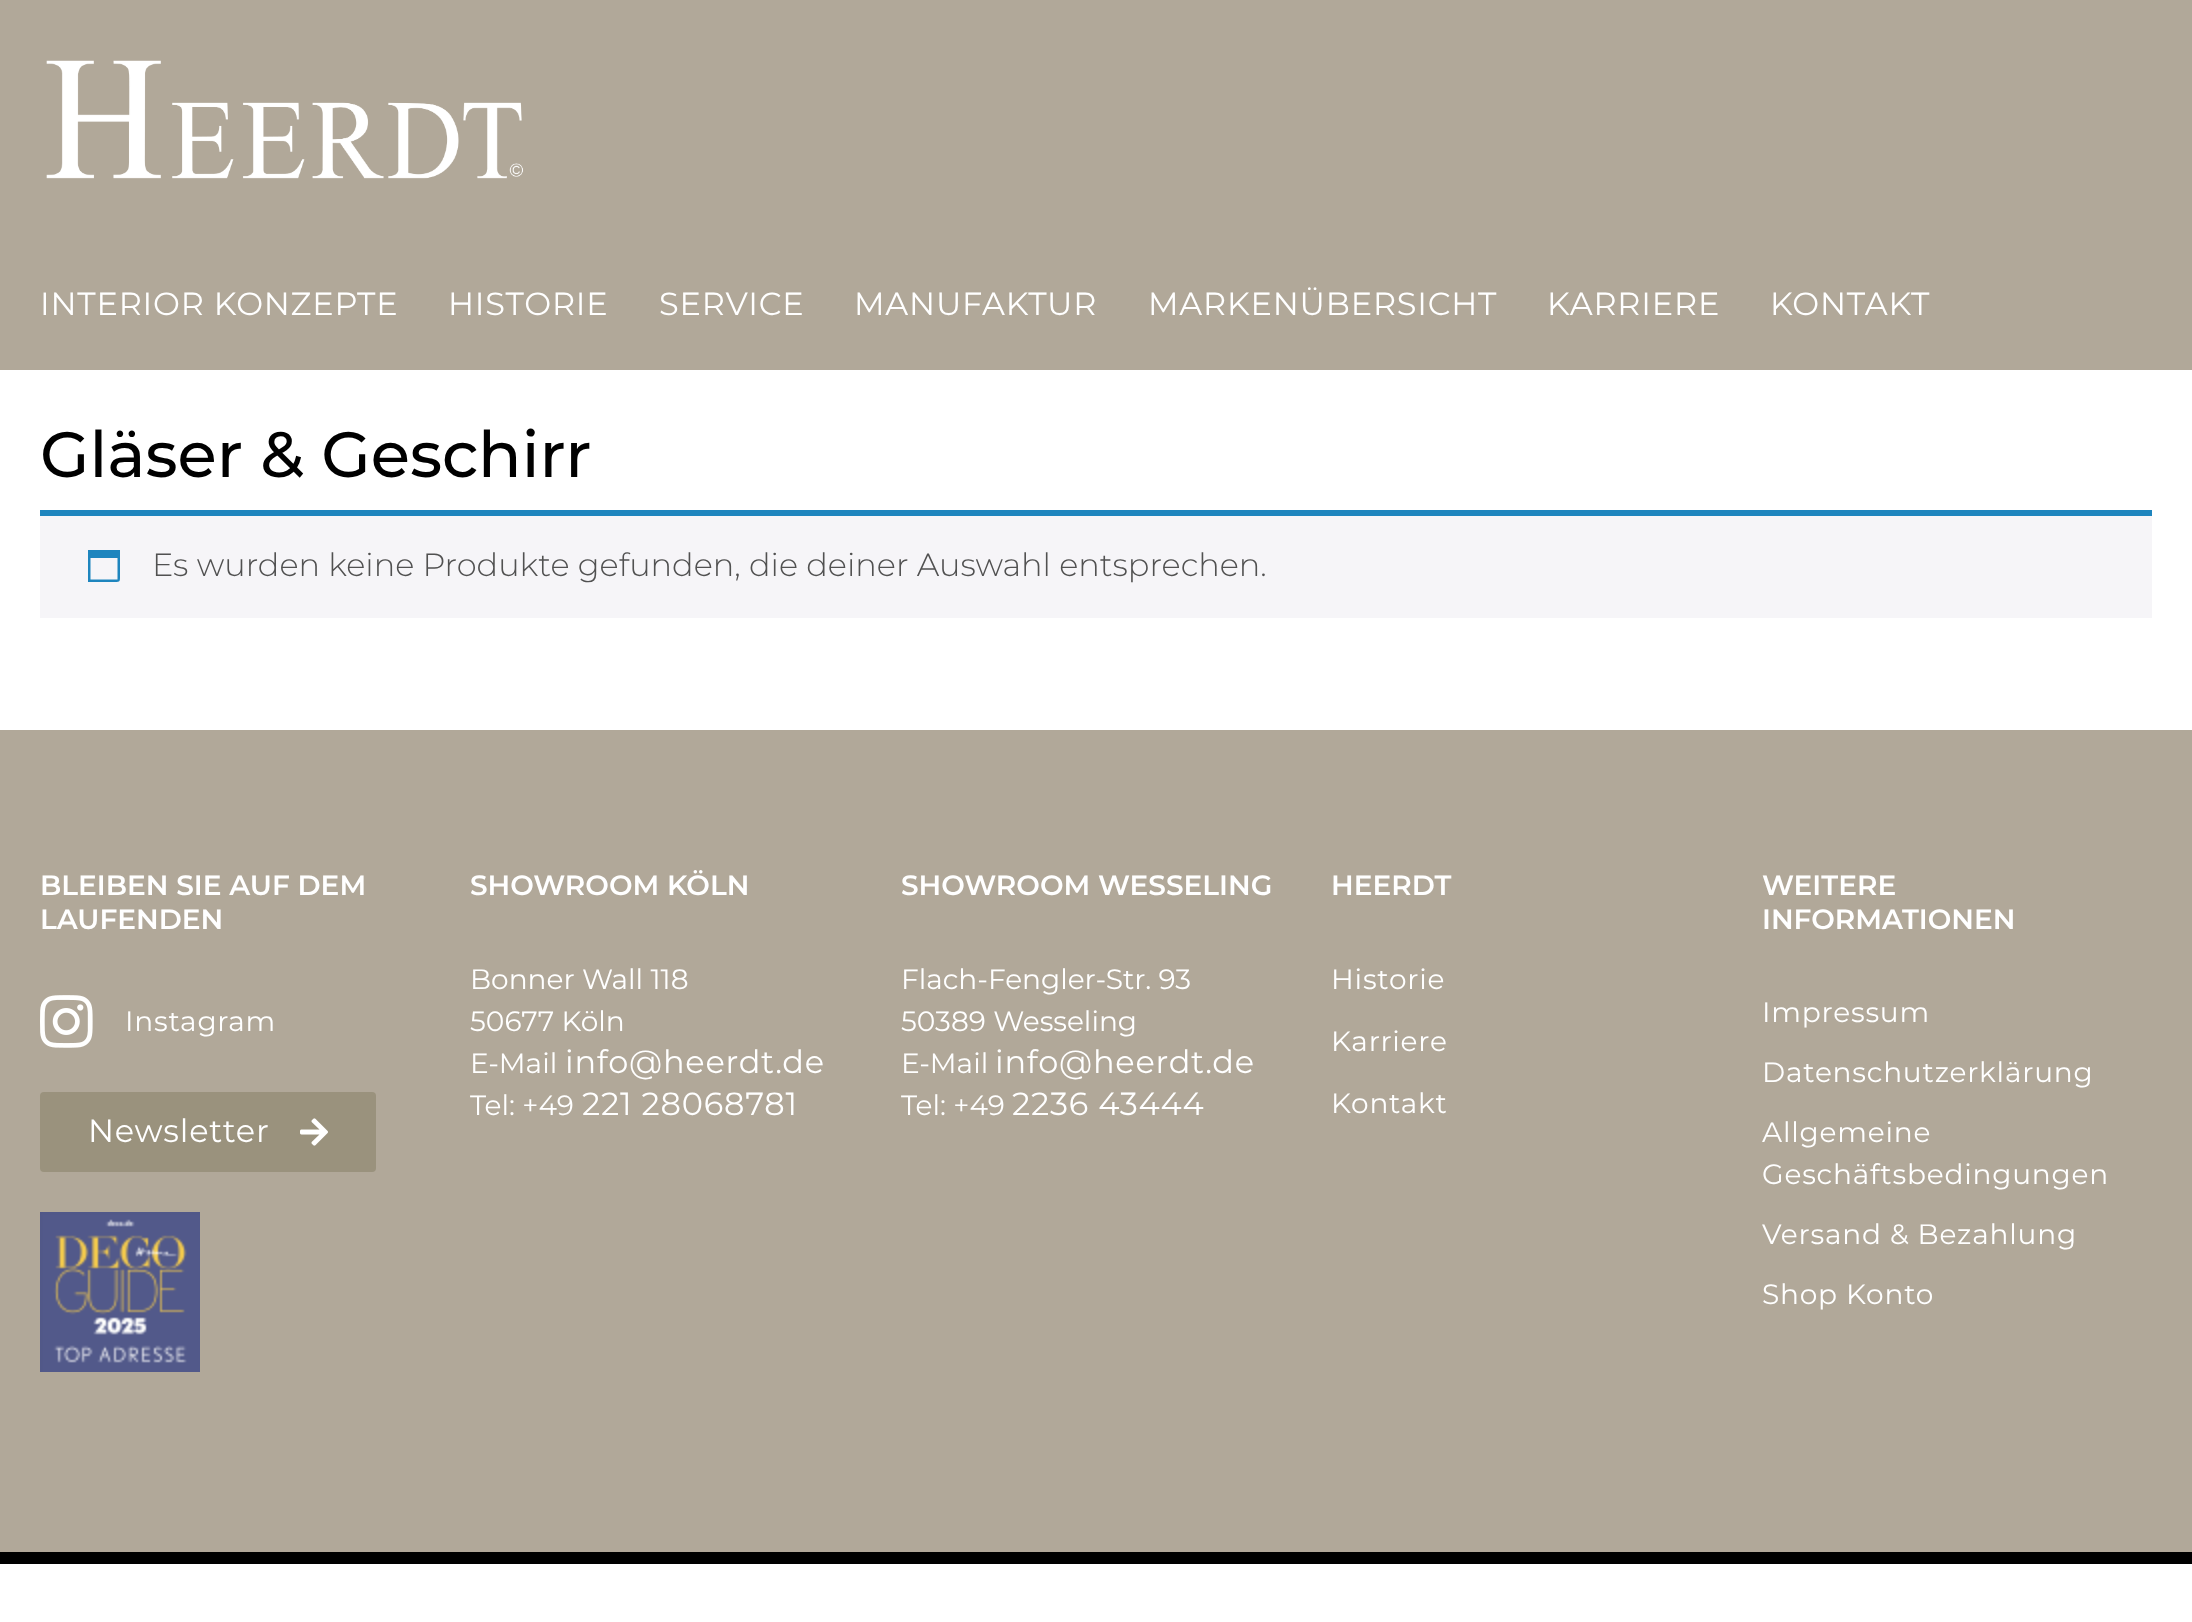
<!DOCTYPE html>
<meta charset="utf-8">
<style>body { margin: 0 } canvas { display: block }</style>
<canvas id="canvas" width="2192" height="1622"></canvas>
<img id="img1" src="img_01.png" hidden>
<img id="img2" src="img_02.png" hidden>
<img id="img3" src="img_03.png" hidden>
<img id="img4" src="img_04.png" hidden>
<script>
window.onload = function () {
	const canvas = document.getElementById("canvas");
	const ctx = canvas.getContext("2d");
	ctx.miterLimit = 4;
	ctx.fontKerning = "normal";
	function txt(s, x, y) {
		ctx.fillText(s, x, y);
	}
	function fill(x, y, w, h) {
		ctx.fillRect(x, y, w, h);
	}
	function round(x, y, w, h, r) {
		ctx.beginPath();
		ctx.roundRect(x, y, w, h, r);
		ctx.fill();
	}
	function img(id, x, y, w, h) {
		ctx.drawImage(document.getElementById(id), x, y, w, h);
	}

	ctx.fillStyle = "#FFFFFF";
	fill(0, 0, 2192, 1622);
	ctx.fillStyle = "#B1A899";
	fill(0, 0, 2192, 370);
	img("img1", 46, 60, 477, 119);
	ctx.fillStyle = "#F6F5F8";
	fill(40, 516, 2112, 102);
	ctx.fillStyle = "#1E85BE";
	fill(40, 510, 2112, 6);
	ctx.beginPath();
	ctx.moveTo(117.5, 558);
	ctx.lineTo(90.5, 558);
	ctx.lineTo(90.5, 579.5);
	ctx.lineTo(117.5, 579.5);
	ctx.closePath();
	ctx.moveTo(120, 550);
	ctx.lineTo(120, 574.5);
	ctx.bezierCurveTo(120, 582.5, 120.5, 582, 112.5, 582);
	ctx.lineTo(88, 582);
	ctx.lineTo(88, 550);
	ctx.closePath();
	ctx.fill();
	ctx.fillStyle = "#B1A899";
	fill(0, 730, 2192, 822);
	ctx.fillStyle = "#000000";
	fill(0, 1552, 2192, 12);
	img("img2", 40, 995, 53, 53);
	ctx.fillStyle = "#9A927D";
	round(40, 1092, 336, 80, 4);
	img("img3", 300, 1118, 28, 28);
	img("img4", 40, 1212, 160, 160);
	ctx.letterSpacing = "0.8px";
	ctx.font = "32px Montserrat";
	ctx.fillStyle = "#FFFFFF";
	txt("INTERIOR KONZEPTE", 40, 315);
	txt("HISTORIE", 448, 315);
	txt("SERVICE", 659, 315);
	txt("MANUFAKTUR", 854, 315);
	txt("MARKENÜBERSICHT", 1148, 315);
	txt("KARRIERE", 1547, 315);
	txt("KONTAKT", 1770, 315);
	ctx.letterSpacing = "0px";
	ctx.font = "500 64px Montserrat";
	ctx.fillStyle = "#000000";
	txt("Gläser & Geschirr", 40, 477);
	ctx.font = "300 32px Montserrat";
	ctx.fillStyle = "#515151";
	txt("Es wurden keine Produkte gefunden, die deiner Auswahl entsprechen.", 152, 576);
	ctx.font = "600 28px Montserrat";
	ctx.fillStyle = "#FFFFFF";
	txt("BLEIBEN SIE AUF DEM", 40, 895);
	txt("LAUFENDEN", 40, 929);
	ctx.letterSpacing = "0.8px";
	ctx.font = "28px Montserrat";
	txt("Instagram", 125, 1031);
	ctx.font = "32px Montserrat";
	txt("Newsletter", 88, 1142);
	ctx.letterSpacing = "0px";
	ctx.font = "600 28px Montserrat";
	txt("SHOWROOM KÖLN", 470, 895);
	ctx.font = "28px Montserrat";
	txt("Bonner Wall 118", 470, 989);
	txt("50677 Köln", 470, 1031);
	txt("E-Mail", 470, 1073);
	ctx.letterSpacing = "0.8px";
	ctx.font = "32px Montserrat";
	txt("info@heerdt.de", 565, 1073);
	ctx.letterSpacing = "0px";
	ctx.font = "28px Montserrat";
	txt("Tel: +49", 470, 1115);
	ctx.letterSpacing = "0.8px";
	ctx.font = "32px Montserrat";
	txt("221 28068781", 582, 1115);
	ctx.letterSpacing = "0px";
	ctx.font = "600 28px Montserrat";
	txt("SHOWROOM WESSELING", 901, 895);
	ctx.font = "28px Montserrat";
	txt("Flach-Fengler-Str. 93", 901, 989);
	txt("50389 Wesseling", 901, 1031);
	txt("E-Mail", 901, 1073);
	ctx.letterSpacing = "0.8px";
	ctx.font = "32px Montserrat";
	txt("info@heerdt.de", 995, 1073);
	ctx.letterSpacing = "0px";
	ctx.font = "28px Montserrat";
	txt("Tel: +49", 901, 1115);
	ctx.letterSpacing = "0.8px";
	ctx.font = "32px Montserrat";
	txt("2236 43444", 1012, 1115);
	ctx.letterSpacing = "0px";
	ctx.font = "600 28px Montserrat";
	txt("HEERDT", 1331, 895);
	ctx.letterSpacing = "0.8px";
	ctx.font = "28px Montserrat";
	txt("Historie", 1331, 989);
	txt("Karriere", 1331, 1051);
	txt("Kontakt", 1331, 1113);
	ctx.letterSpacing = "0px";
	ctx.font = "600 28px Montserrat";
	txt("WEITERE", 1762, 895);
	txt("INFORMATIONEN", 1762, 929);
	ctx.letterSpacing = "0.8px";
	ctx.font = "28px Montserrat";
	txt("Impressum", 1762, 1022);
	txt("Datenschutzerklärung", 1762, 1082);
	txt("Allgemeine", 1762, 1142);
	txt("Geschäftsbedingungen", 1762, 1184);
	txt("Versand & Bezahlung", 1762, 1244);
	txt("Shop Konto", 1762, 1304);
};
</script>
